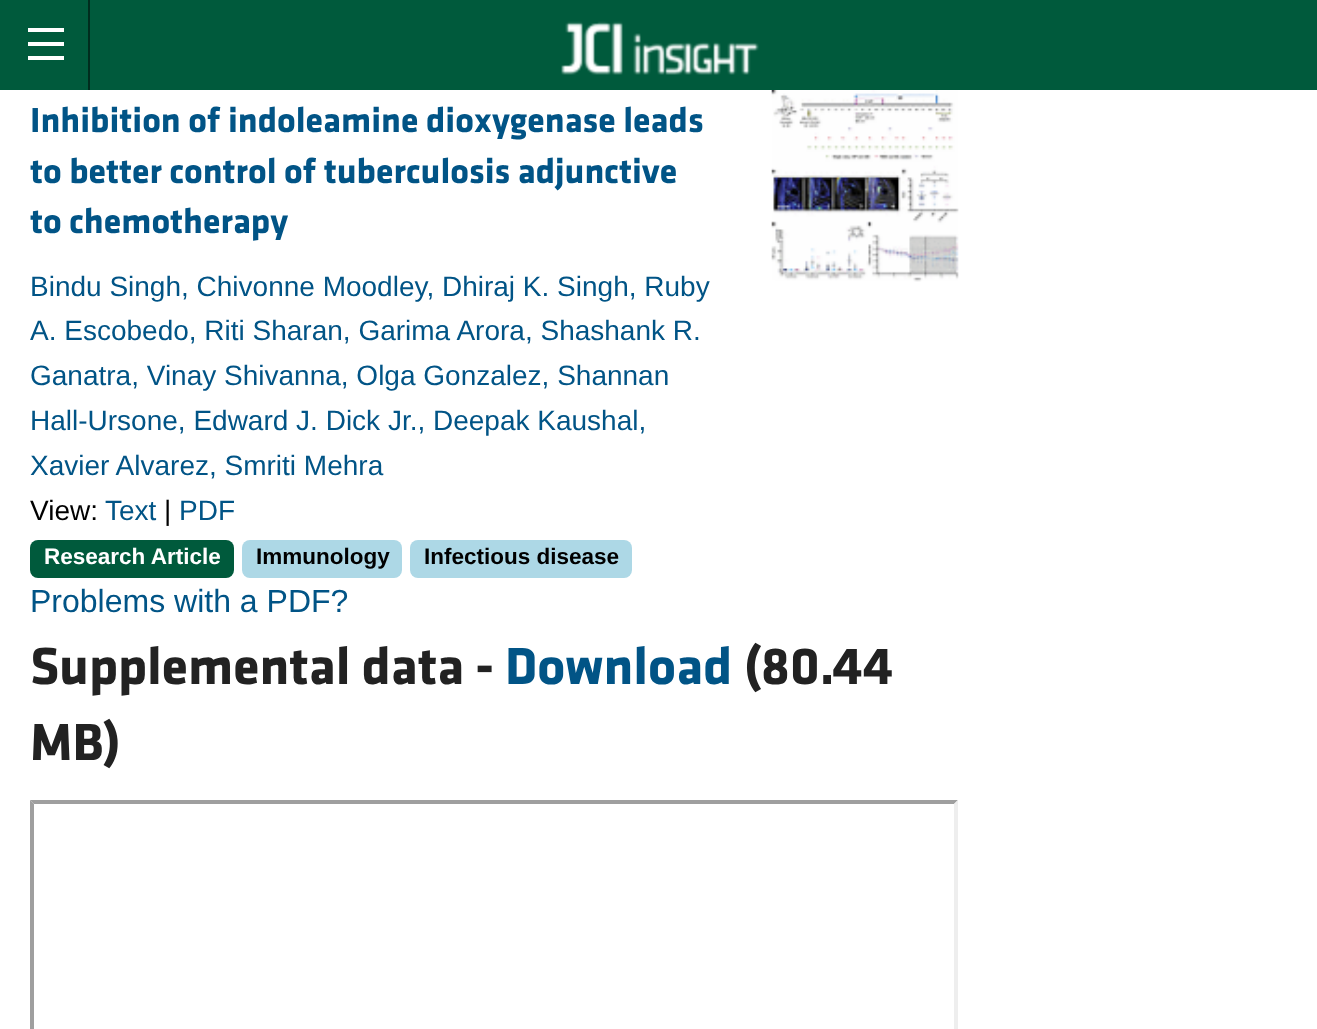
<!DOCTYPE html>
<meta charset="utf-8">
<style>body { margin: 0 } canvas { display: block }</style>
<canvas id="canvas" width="1317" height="1029"></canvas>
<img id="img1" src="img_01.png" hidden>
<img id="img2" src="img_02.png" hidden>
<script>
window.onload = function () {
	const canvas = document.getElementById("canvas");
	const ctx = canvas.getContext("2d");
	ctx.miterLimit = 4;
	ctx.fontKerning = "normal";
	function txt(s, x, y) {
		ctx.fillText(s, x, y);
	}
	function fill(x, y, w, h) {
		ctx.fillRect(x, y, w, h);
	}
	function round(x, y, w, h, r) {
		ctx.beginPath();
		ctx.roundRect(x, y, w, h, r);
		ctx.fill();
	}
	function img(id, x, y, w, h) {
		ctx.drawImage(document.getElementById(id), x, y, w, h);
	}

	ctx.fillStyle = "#FFFFFF";
	fill(0, 0, 1317, 1029);
	ctx.fillStyle = "#005A3C";
	fill(0, 0, 1317, 90);
	ctx.fillStyle = "#002D1E";
	fill(88, 0, 2, 90);
	ctx.fillStyle = "#FFFFFF";
	fill(28, 56, 36, 4);
	fill(28, 42, 36, 4);
	fill(28, 28, 36, 4);
	img("img1", 561, 21, 198, 54);
	ctx.fillStyle = "#005A3C";
	round(30, 540, 204, 38, 8);
	ctx.fillStyle = "#ADD8E6";
	round(242, 540, 160, 38, 8);
	round(410, 540, 222, 38, 8);
	img("img2", 771, 90, 188, 192);
	ctx.fillStyle = "#9F9F9F";
	ctx.beginPath();
	ctx.moveTo(30, 800);
	ctx.lineTo(958, 800);
	ctx.lineTo(954, 804);
	ctx.lineTo(34, 804);
	ctx.closePath();
	ctx.fill();
	ctx.beginPath();
	ctx.moveTo(30, 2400);
	ctx.lineTo(30, 800);
	ctx.lineTo(34, 804);
	ctx.lineTo(34, 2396);
	ctx.closePath();
	ctx.fill();
	ctx.fillStyle = "#EEEEEE";
	ctx.beginPath();
	ctx.moveTo(958, 800);
	ctx.lineTo(958, 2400);
	ctx.lineTo(954, 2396);
	ctx.lineTo(954, 804);
	ctx.closePath();
	ctx.fill();
	ctx.font = "bold 36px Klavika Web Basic";
	ctx.fillStyle = "#015486";
	txt("Inhibition of indoleamine dioxygenase leads", 30, 132);
	txt("to better control of tuberculosis adjunctive", 30, 183);
	txt("to chemotherapy", 30, 233);
	ctx.font = "28px Liberation Sans";
	txt("Bindu Singh, Chivonne Moodley, Dhiraj K. Singh, Ruby", 30, 296);
	txt("A. Escobedo, Riti Sharan, Garima Arora, Shashank R.", 30, 340);
	txt("Ganatra, Vinay Shivanna, Olga Gonzalez, Shannan", 30, 385);
	txt("Hall-Ursone, Edward J. Dick Jr., Deepak Kaushal,", 30, 430);
	txt("Xavier Alvarez, Smriti Mehra", 30, 475);
	ctx.fillStyle = "#000000";
	txt("View:", 30, 520);
	ctx.fillStyle = "#015486";
	txt("Text", 105, 520);
	ctx.fillStyle = "#000000";
	txt("|", 164, 520);
	ctx.fillStyle = "#015486";
	txt("PDF", 179, 520);
	ctx.font = "bold 22.5px Liberation Sans";
	ctx.fillStyle = "#FFFFFF";
	txt("Research Article", 44, 564);
	ctx.fillStyle = "#000000";
	txt("Immunology", 256, 564);
	txt("Infectious disease", 424, 564);
	ctx.font = "32px Liberation Sans";
	ctx.fillStyle = "#015486";
	txt("Problems with a PDF?", 30, 612);
	ctx.font = "bold 54px Klavika Web Basic";
	ctx.fillStyle = "#222222";
	txt("Supplemental data -", 30, 684);
	ctx.fillStyle = "#015486";
	txt("Download", 505, 684);
	ctx.fillStyle = "#222222";
	txt("(80.44", 744, 684);
	txt("MB)", 30, 760);
};
</script>
